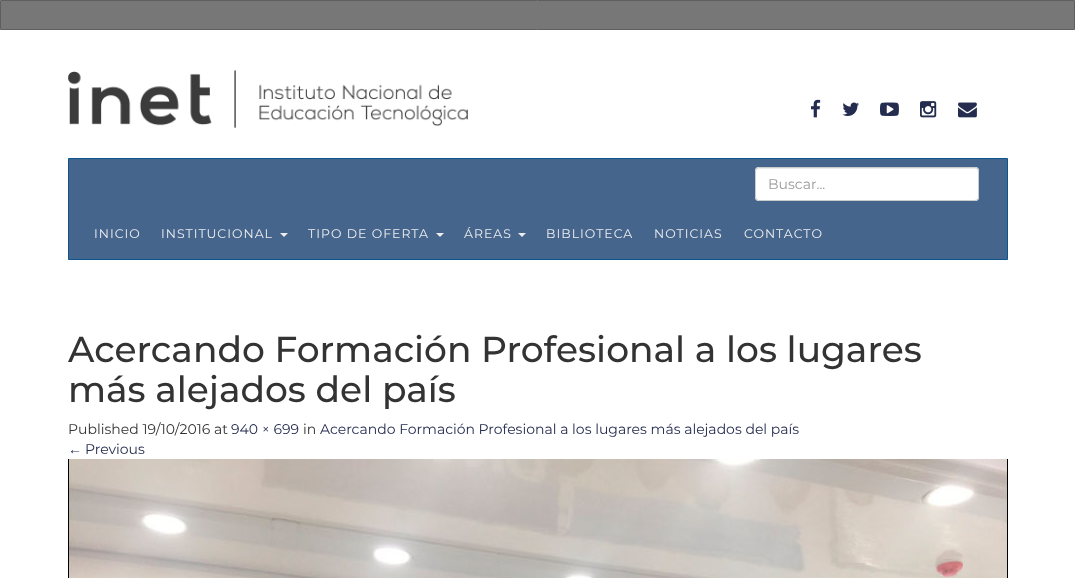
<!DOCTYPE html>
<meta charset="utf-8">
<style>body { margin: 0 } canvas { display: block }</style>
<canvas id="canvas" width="1075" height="578"></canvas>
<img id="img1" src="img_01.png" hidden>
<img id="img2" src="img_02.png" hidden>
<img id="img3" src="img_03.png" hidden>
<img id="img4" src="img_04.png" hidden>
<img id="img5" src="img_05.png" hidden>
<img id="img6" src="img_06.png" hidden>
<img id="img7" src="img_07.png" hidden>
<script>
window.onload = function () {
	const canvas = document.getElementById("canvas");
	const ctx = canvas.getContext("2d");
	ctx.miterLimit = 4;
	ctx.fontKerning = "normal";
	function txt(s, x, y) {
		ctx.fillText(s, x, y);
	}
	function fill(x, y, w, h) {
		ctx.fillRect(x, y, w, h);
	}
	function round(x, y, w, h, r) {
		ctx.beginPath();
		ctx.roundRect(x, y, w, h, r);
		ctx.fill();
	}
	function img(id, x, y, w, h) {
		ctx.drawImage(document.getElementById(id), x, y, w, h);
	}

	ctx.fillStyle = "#FFFFFF";
	fill(0, 0, 1075, 578);
	ctx.fillStyle = "#777777";
	ctx.beginPath();
	ctx.rect(0.5, 0.5, 1074, 29);
	ctx.fill();
	ctx.strokeStyle = "#5E5E5E";
	ctx.stroke();
	img("img1", 68, 70, 400, 58);
	img("img2", 811, 99, 10, 19);
	img("img3", 842, 102, 17, 14);
	img("img4", 880, 102, 19, 14);
	img("img5", 920, 101, 17, 17);
	img("img6", 958, 102, 19, 16);
	ctx.fillStyle = "#45658D";
	ctx.beginPath();
	ctx.rect(68.5, 158.5, 939, 101);
	ctx.fill();
	ctx.strokeStyle = "#0C5690";
	ctx.stroke();
	ctx.fillStyle = "#FFFFFF";
	round(755, 167, 224, 34, 4);
	ctx.fillStyle = "#ECECEC";
	ctx.beginPath();
	ctx.moveTo(759, 169);
	ctx.lineTo(975, 169);
	ctx.bezierCurveTo(977, 169, 978, 170, 978, 172);
	ctx.lineTo(978, 171);
	ctx.bezierCurveTo(978, 169, 977, 168, 975, 168);
	ctx.lineTo(759, 168);
	ctx.bezierCurveTo(757, 168, 756, 169, 756, 171);
	ctx.lineTo(756, 172);
	ctx.bezierCurveTo(756, 170, 757, 169, 759, 169);
	ctx.closePath();
	ctx.fill();
	ctx.beginPath();
	ctx.roundRect(755.5, 167.5, 223, 33, 3.5);
	ctx.strokeStyle = "#CCCCCC";
	ctx.stroke();
	ctx.fillStyle = "#EEEEEE";
	ctx.beginPath();
	ctx.moveTo(280, 233);
	ctx.lineTo(288, 233);
	ctx.lineTo(284, 237);
	ctx.closePath();
	ctx.fill();
	ctx.beginPath();
	ctx.moveTo(436, 233);
	ctx.lineTo(444, 233);
	ctx.lineTo(440, 237);
	ctx.closePath();
	ctx.fill();
	ctx.beginPath();
	ctx.moveTo(518, 233);
	ctx.lineTo(526, 233);
	ctx.lineTo(522, 237);
	ctx.closePath();
	ctx.fill();
	img("img7", 68, 459, 940, 119);
	ctx.font = "14px Montserrat";
	ctx.fillStyle = "#999999";
	txt("Buscar...", 768, 189);
	ctx.letterSpacing = "1px";
	ctx.font = "12.5px Montserrat";
	ctx.fillStyle = "#EEEEEE";
	txt("INICIO", 94, 238);
	txt("INSTITUCIONAL", 161, 238);
	txt("TIPO DE OFERTA", 308, 238);
	txt("ÁREAS", 464, 238);
	txt("BIBLIOTECA", 546, 238);
	txt("NOTICIAS", 654, 238);
	txt("CONTACTO", 744, 238);
	ctx.letterSpacing = "0px";
	ctx.font = "500 36px Montserrat";
	ctx.fillStyle = "#333333";
	txt("Acercando Formación Profesional a los lugares", 68, 362);
	txt("más alejados del país", 68, 402);
	ctx.font = "14px Montserrat";
	txt("Published 19/10/2016 at", 68, 434);
	ctx.fillStyle = "#242C4F";
	txt("940 × 699", 231, 434);
	ctx.fillStyle = "#333333";
	txt("in", 303, 434);
	ctx.fillStyle = "#242C4F";
	txt("Acercando Formación Profesional a los lugares más alejados del país", 320, 434);
	ctx.font = "14px Liberation Sans";
	txt("←", 68, 454);
	ctx.font = "14px Montserrat";
	txt("Previous", 85, 454);
};
</script>
